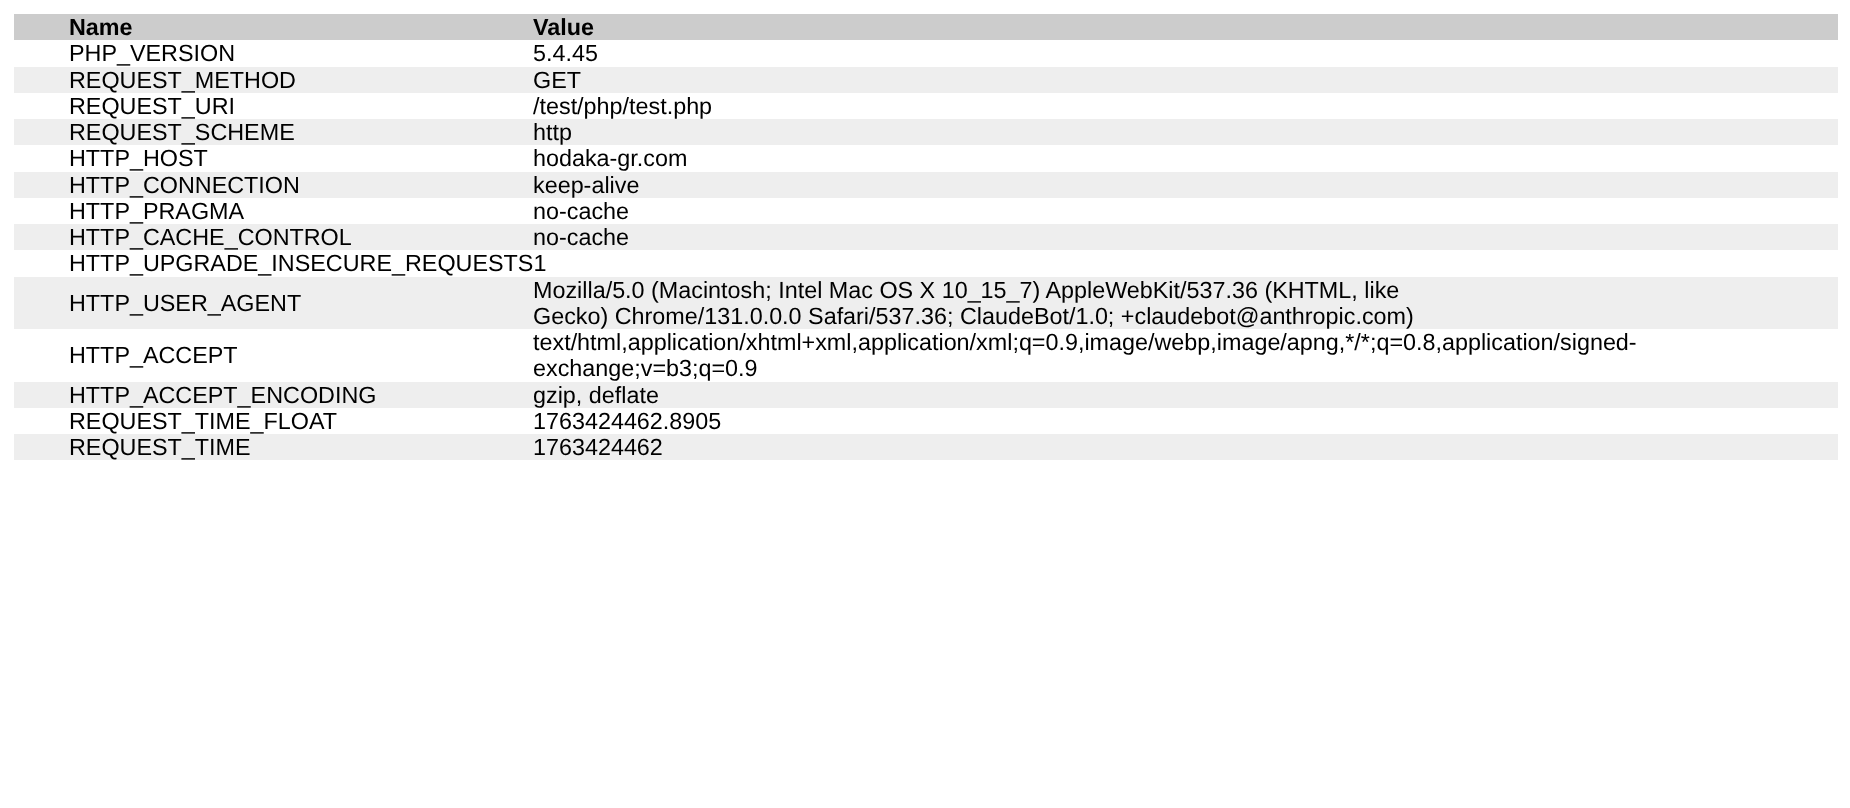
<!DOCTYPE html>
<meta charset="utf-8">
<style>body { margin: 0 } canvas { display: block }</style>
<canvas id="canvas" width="1850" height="808"></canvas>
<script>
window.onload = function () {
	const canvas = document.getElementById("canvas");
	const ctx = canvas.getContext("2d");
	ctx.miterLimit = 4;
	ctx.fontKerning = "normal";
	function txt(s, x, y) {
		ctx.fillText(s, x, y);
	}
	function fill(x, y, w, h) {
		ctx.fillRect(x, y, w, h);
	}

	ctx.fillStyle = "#FFFFFF";
	fill(0, 0, 1850, 808);
	ctx.fillStyle = "#CCCCCC";
	fill(14, 14, 1824, 26);
	ctx.fillStyle = "#EEEEEE";
	fill(14, 67, 1824, 26);
	fill(14, 119, 1824, 26);
	fill(14, 172, 1824, 26);
	fill(14, 224, 1824, 26);
	fill(14, 277, 1824, 52);
	fill(14, 382, 1824, 26);
	fill(14, 434, 1824, 26);
	ctx.font = "bold 23.35px Liberation Sans";
	ctx.fillStyle = "#000000";
	txt("Name", 69, 35);
	txt("Value", 533, 35);
	ctx.font = "23.35px Liberation Sans";
	txt("PHP_VERSION", 69, 61);
	txt("5.4.45", 533, 61);
	txt("REQUEST_METHOD", 69, 88);
	txt("GET", 533, 88);
	txt("REQUEST_URI", 69, 114);
	txt("/test/php/test.php", 533, 114);
	txt("REQUEST_SCHEME", 69, 140);
	txt("http", 533, 140);
	txt("HTTP_HOST", 69, 166);
	txt("hodaka-gr.com", 533, 166);
	txt("HTTP_CONNECTION", 69, 193);
	txt("keep-alive", 533, 193);
	txt("HTTP_PRAGMA", 69, 219);
	txt("no-cache", 533, 219);
	txt("HTTP_CACHE_CONTROL", 69, 245);
	txt("no-cache", 533, 245);
	txt("HTTP_UPGRADE_INSECURE_REQUESTS1", 69, 271);
	txt("HTTP_USER_AGENT", 69, 311);
	txt("Mozilla/5.0 (Macintosh; Intel Mac OS X 10_15_7) AppleWebKit/537.36 (KHTML, like", 533, 298);
	txt("Gecko) Chrome/131.0.0.0 Safari/537.36; ClaudeBot/1.0; +claudebot@anthropic.com)", 533, 324);
	txt("HTTP_ACCEPT", 69, 363);
	txt("text/html,application/xhtml+xml,application/xml;q=0.9,image/webp,image/apng,*/*;q=0.8,application/signed-", 533, 350);
	txt("exchange;v=b3;q=0.9", 533, 376);
	txt("HTTP_ACCEPT_ENCODING", 69, 403);
	txt("gzip, deflate", 533, 403);
	txt("REQUEST_TIME_FLOAT", 69, 429);
	txt("1763424462.8905", 533, 429);
	txt("REQUEST_TIME", 69, 455);
	txt("1763424462", 533, 455);
};
</script>
